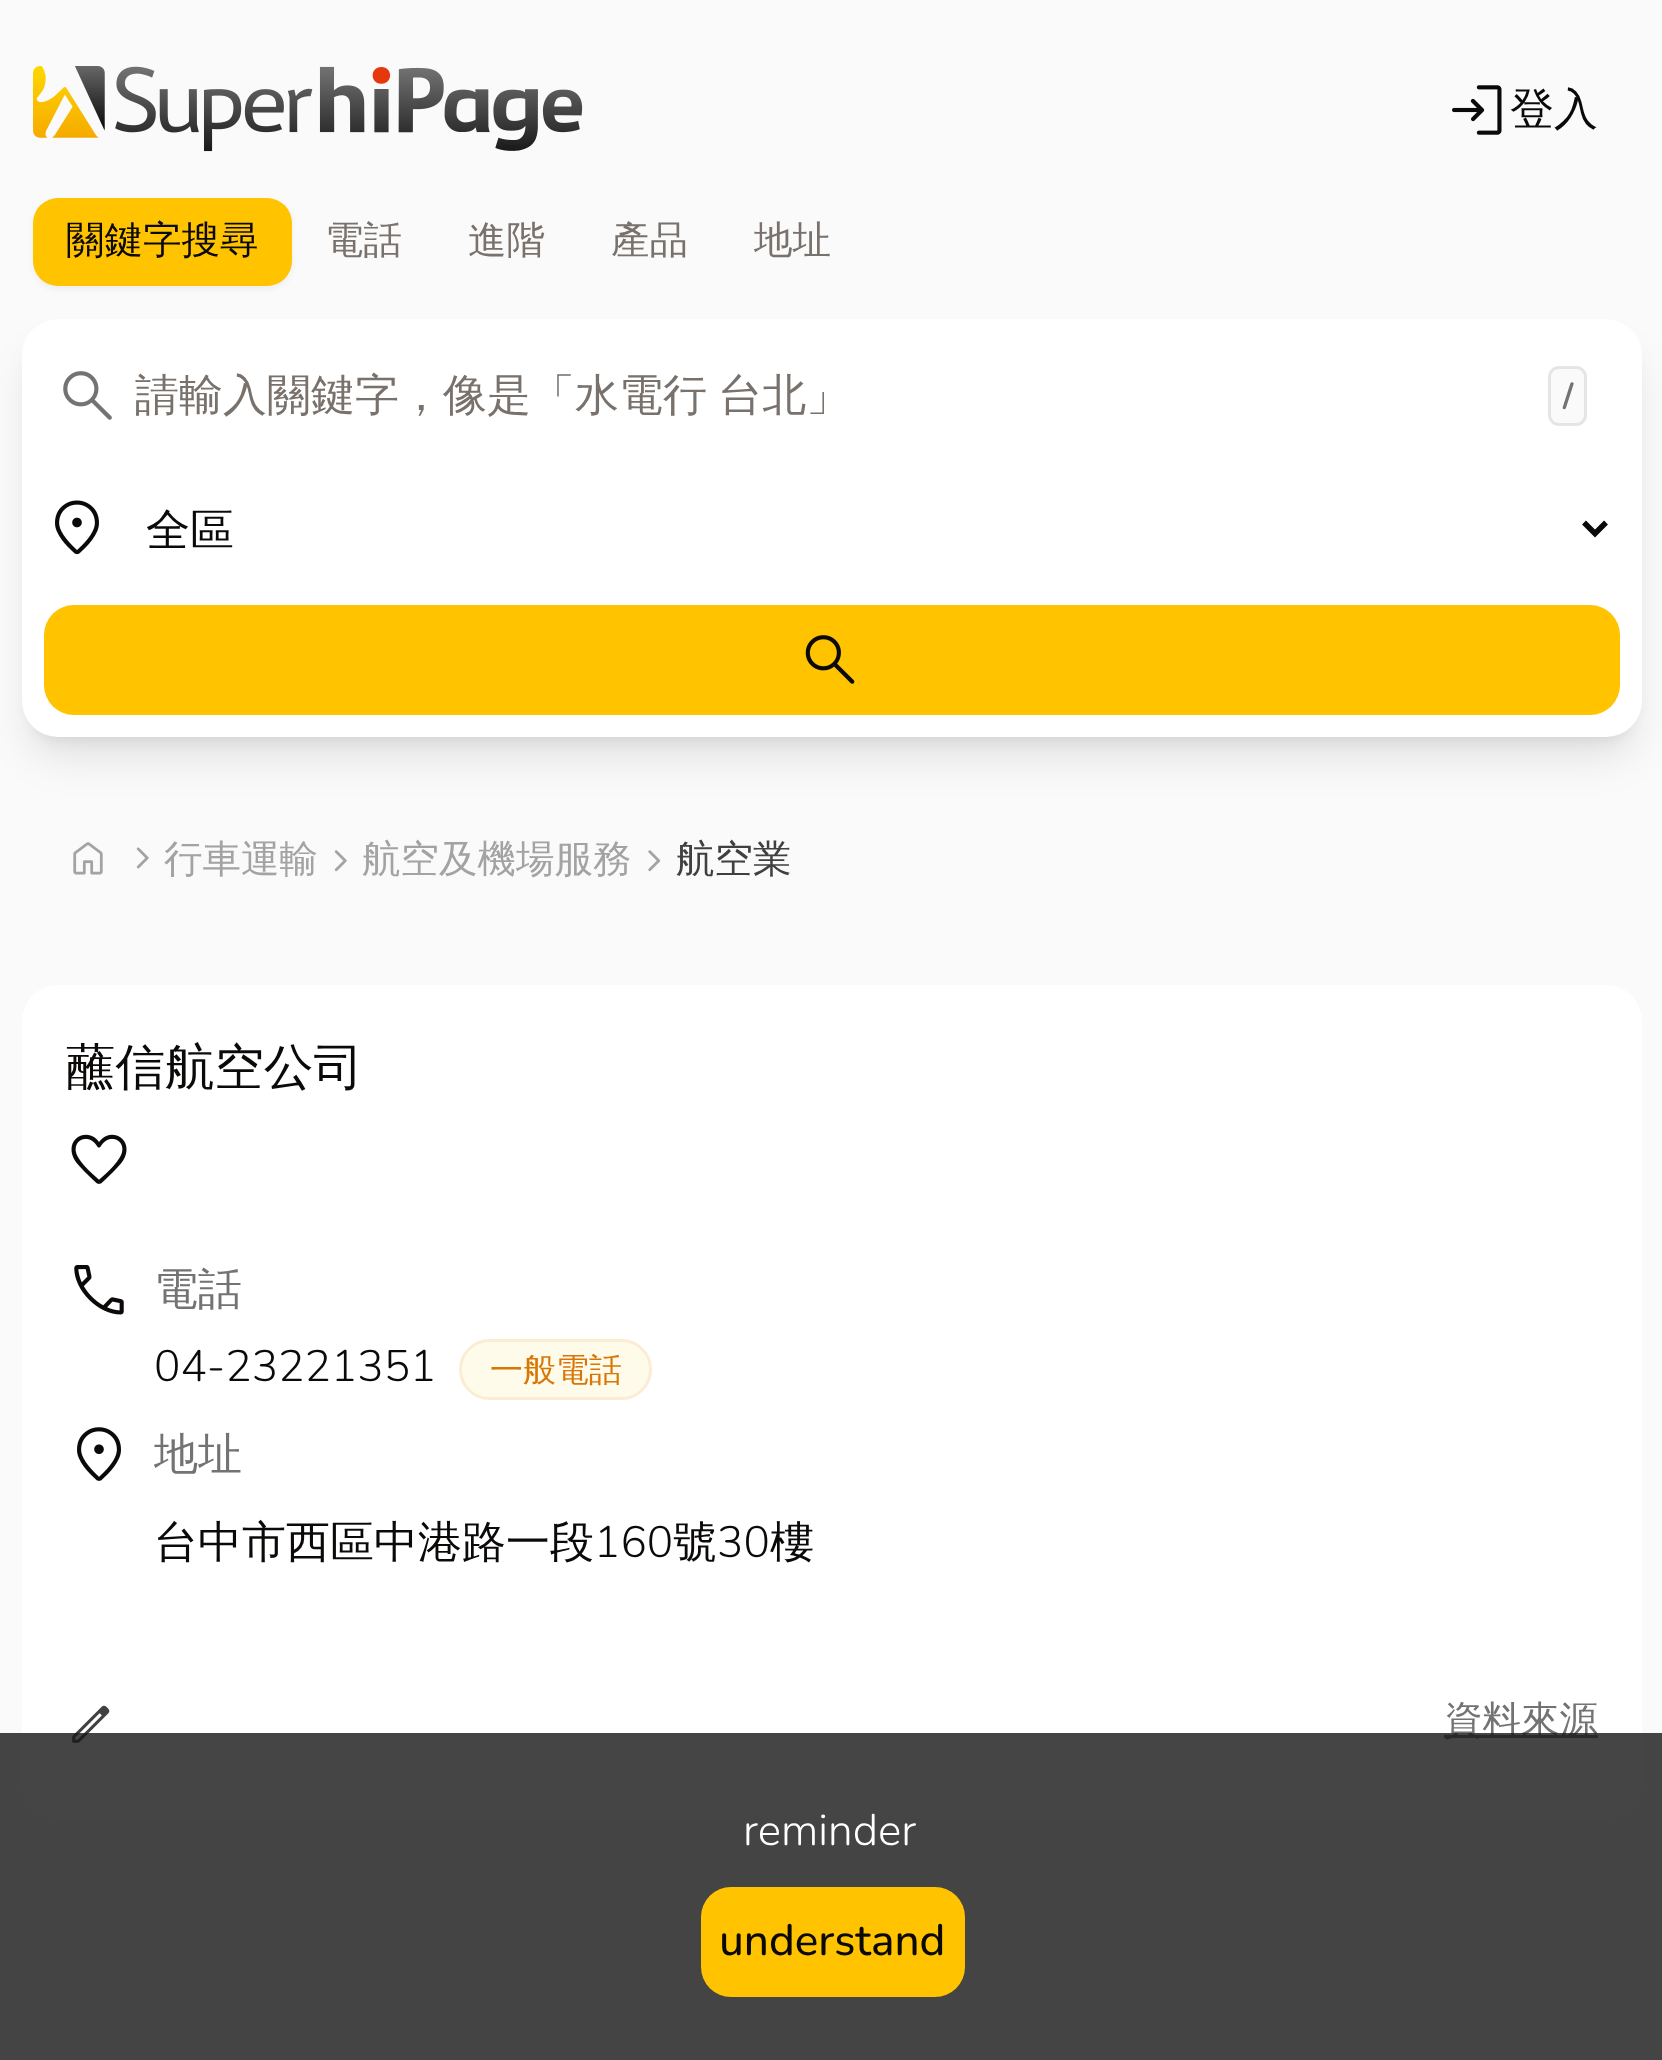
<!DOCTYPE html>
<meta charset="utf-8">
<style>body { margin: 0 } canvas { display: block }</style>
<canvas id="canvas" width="1662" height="2060"></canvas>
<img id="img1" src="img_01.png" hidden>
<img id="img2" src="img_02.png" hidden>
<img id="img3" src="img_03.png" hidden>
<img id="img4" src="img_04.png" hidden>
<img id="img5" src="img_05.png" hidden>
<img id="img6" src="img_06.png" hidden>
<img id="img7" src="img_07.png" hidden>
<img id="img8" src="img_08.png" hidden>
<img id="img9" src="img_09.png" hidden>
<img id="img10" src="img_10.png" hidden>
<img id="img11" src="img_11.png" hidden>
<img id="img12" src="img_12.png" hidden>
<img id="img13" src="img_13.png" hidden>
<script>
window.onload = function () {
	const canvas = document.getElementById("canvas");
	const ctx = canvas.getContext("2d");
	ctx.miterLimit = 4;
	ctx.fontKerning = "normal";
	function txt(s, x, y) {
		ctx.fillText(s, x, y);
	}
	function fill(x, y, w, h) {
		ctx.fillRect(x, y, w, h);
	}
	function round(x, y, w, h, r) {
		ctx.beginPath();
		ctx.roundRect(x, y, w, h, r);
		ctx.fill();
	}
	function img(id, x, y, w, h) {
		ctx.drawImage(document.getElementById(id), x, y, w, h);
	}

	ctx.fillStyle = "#FAFAFA";
	fill(0, 0, 1662, 2060);
	img("img1", 33, 66, 550, 86);
	img("img2", 1452, 85, 50, 50);
	ctx.fillStyle = "rgba(0, 0, 0, 0.05)";
	ctx.filter = "blur(3px)";
	ctx.beginPath();
	ctx.roundRect(33, 201, 259, 88, 25);
	ctx.fill();
	ctx.filter = "none";
	ctx.fillStyle = "#FFC300";
	round(33, 198, 259, 88, 25);
	ctx.fillStyle = "rgba(0, 0, 0, 0.1)";
	ctx.filter = "blur(8px)";
	ctx.beginPath();
	ctx.roundRect(33, 341, 1598, 396, 25);
	ctx.fill();
	ctx.filter = "none";
	ctx.filter = "blur(20.5px)";
	ctx.beginPath();
	ctx.roundRect(30, 355, 1604, 401, 28);
	ctx.fill();
	ctx.filter = "none";
	ctx.fillStyle = "#FFFFFF";
	round(22, 319, 1620, 418, 36);
	img("img3", 63, 371, 49, 49);
	ctx.fillStyle = "#FAFAFA";
	ctx.beginPath();
	ctx.roundRect(1549.5, 367.5, 36, 57, 9.5);
	ctx.fill();
	ctx.strokeStyle = "#E5E5E5";
	ctx.lineWidth = 3;
	ctx.stroke();
	img("img4", 55, 500, 44, 55);
	ctx.beginPath();
	ctx.moveTo(1584, 522.5);
	ctx.lineTo(1595, 533.5);
	ctx.lineTo(1606, 522.5);
	ctx.strokeStyle = "#0C0A09";
	ctx.lineWidth = 5.5;
	ctx.stroke();
	ctx.fillStyle = "#FFC300";
	round(44, 605, 1576, 110, 30);
	img("img5", 805, 635, 50, 49);
	img("img6", 73, 842, 30, 33);
	img("img7", 136, 847, 13, 22);
	img("img8", 334, 850, 13, 22);
	img("img9", 648, 850, 13, 22);
	ctx.fillStyle = "#FFFFFF";
	round(22, 985, 1620, 833, 36);
	img("img10", 71, 1134, 56, 50);
	img("img11", 74, 1265, 50, 50);
	ctx.fillStyle = "#FFFBEB";
	round(459, 1339, 193, 61, 30.5);
	ctx.beginPath();
	ctx.roundRect(460.5, 1340.5, 190, 58, 29);
	ctx.strokeStyle = "rgba(217, 119, 6, 0.1)";
	ctx.lineWidth = 3;
	ctx.stroke();
	img("img12", 77, 1427, 44, 54);
	img("img13", 72, 1705, 38, 38);
	ctx.fillStyle = "#737373";
	fill(1444, 1735, 154, 3);
	ctx.font = "500 44px WenQuanYi Zen Hei";
	ctx.fillStyle = "#0C0A09";
	txt("登入", 1510, 124);
	ctx.font = "500 38.5px WenQuanYi Zen Hei";
	txt("關鍵字搜尋", 66, 253);
	ctx.fillStyle = "#78716C";
	txt("電話", 325, 253);
	txt("進階", 468, 253);
	txt("產品", 611, 253);
	txt("地址", 754, 253);
	ctx.wordSpacing = "-2px";
	ctx.font = "500 44px WenQuanYi Zen Hei";
	txt("請輸入關鍵字，像是「水電行 台北」", 135, 410);
	ctx.wordSpacing = "0px";
	ctx.font = "bold 33px Nunito";
	ctx.fillStyle = "#737373";
	txt("/", 1563, 407);
	ctx.font = "500 44px WenQuanYi Zen Hei";
	ctx.fillStyle = "#0C0A09";
	txt("全區", 146, 545);
	ctx.font = "500 38.5px WenQuanYi Zen Hei";
	ctx.fillStyle = "#A3A3A3";
	txt("行車運輸", 164, 872);
	txt("航空及機場服務", 362, 872);
	ctx.fillStyle = "#404040";
	txt("航空業", 676, 872);
	ctx.font = "500 49.5px WenQuanYi Zen Hei";
	ctx.fillStyle = "#0C0A09";
	txt("蘸信航空公司", 66, 1084);
	ctx.font = "500 44px WenQuanYi Zen Hei";
	ctx.fillStyle = "#737373";
	txt("電話", 154, 1304);
	ctx.font = "300 44px Nunito";
	ctx.fillStyle = "#0C0A09";
	txt("04-23221351", 154, 1381);
	ctx.font = "500 33px WenQuanYi Zen Hei";
	ctx.fillStyle = "#D97706";
	txt("一般電話", 490, 1381);
	ctx.font = "500 44px WenQuanYi Zen Hei";
	ctx.fillStyle = "#737373";
	txt("地址", 154, 1469);
	ctx.fillStyle = "#0C0A09";
	txt("台中市西區中港路一段", 154, 1557);
	ctx.font = "300 44px Nunito";
	txt("160", 594, 1557);
	ctx.font = "500 44px WenQuanYi Zen Hei";
	txt("號", 673, 1557);
	ctx.font = "300 44px Nunito";
	txt("30", 717, 1557);
	ctx.font = "500 44px WenQuanYi Zen Hei";
	txt("樓", 770, 1557);
	ctx.font = "500 38.5px WenQuanYi Zen Hei";
	ctx.fillStyle = "#737373";
	txt("資料來源", 1444, 1733);
	ctx.fillStyle = "rgba(23, 23, 23, 0.8)";
	fill(0, 1733, 1662, 327);
	ctx.font = "300 44px Nunito";
	ctx.fillStyle = "#FFFFFF";
	txt("reminder", 743, 1845);
	ctx.fillStyle = "#FFC300";
	round(701, 1887, 264, 110, 30);
	ctx.font = "500 44px Nunito";
	ctx.fillStyle = "#0C0A09";
	txt("understand", 719, 1955);
};
</script>
